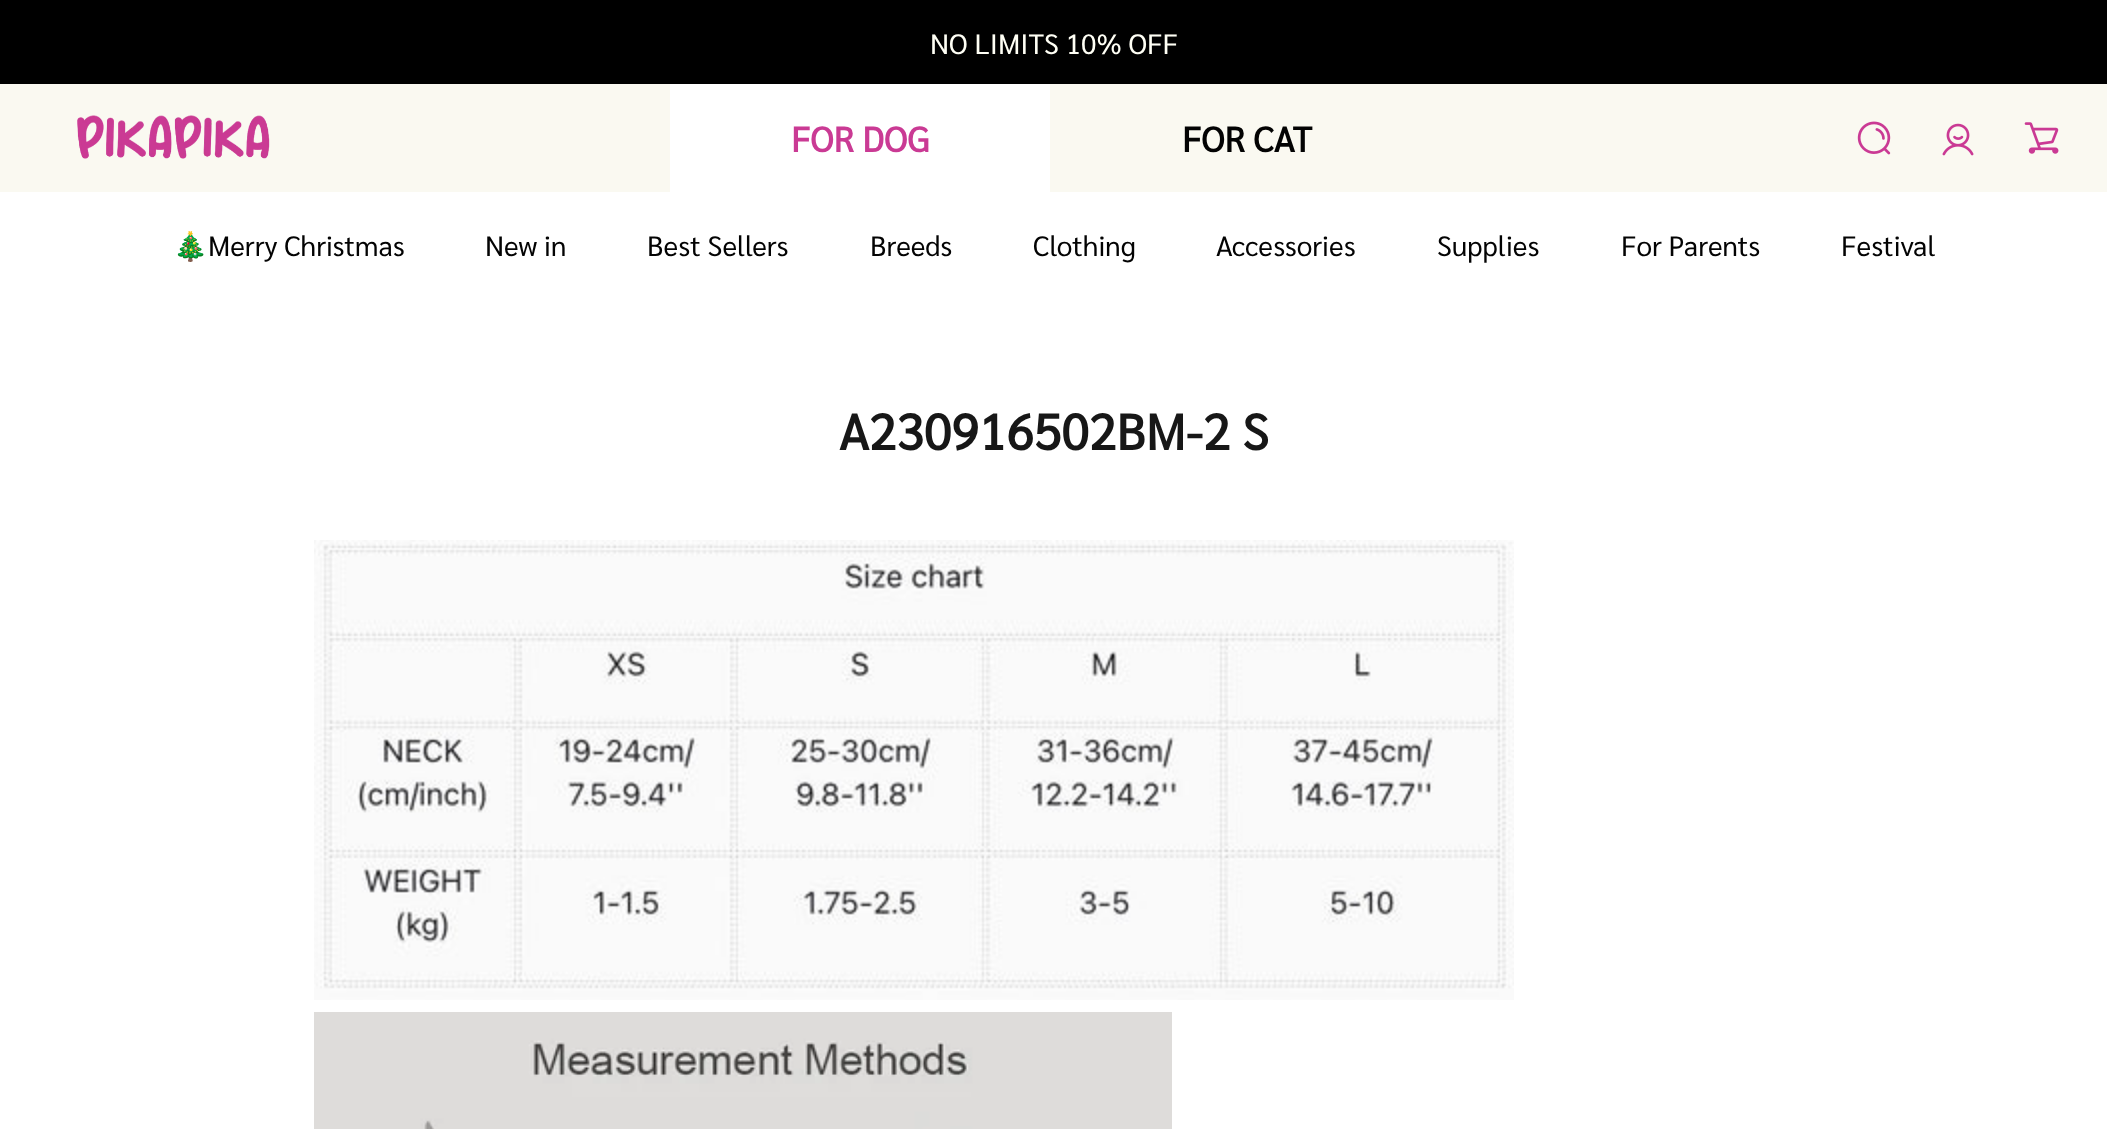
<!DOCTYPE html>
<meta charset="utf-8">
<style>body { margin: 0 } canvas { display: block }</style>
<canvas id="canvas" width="2107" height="1129"></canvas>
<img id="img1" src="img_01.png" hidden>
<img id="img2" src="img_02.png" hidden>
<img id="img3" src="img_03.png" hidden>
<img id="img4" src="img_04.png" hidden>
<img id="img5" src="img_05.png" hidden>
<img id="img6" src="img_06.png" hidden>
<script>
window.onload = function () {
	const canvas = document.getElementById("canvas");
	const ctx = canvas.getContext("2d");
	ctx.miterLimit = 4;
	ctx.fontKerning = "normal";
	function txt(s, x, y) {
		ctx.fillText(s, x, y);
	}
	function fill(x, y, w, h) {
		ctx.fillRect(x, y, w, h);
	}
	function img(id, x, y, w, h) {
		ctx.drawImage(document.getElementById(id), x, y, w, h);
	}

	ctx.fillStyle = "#FFFFFF";
	fill(0, 0, 2107, 1129);
	ctx.fillStyle = "#000000";
	fill(0, 0, 2107, 84);
	ctx.fillStyle = "#FAF9F1";
	fill(0, 84, 2107, 108);
	img("img1", 77, 115, 193, 44);
	img("img2", 1857, 121, 34, 34);
	img("img3", 1942, 123, 32, 33);
	img("img4", 2024, 122, 35, 32);
	ctx.fillStyle = "#FFFFFF";
	fill(670, 84, 380, 108);
	img("img5", 314, 540, 1200, 460);
	img("img6", 314, 1012, 858, 117);
	ctx.font = "28px Sarabun";
	ctx.fillStyle = "#FFFFF5";
	txt("NO LIMITS 10% OFF", 930, 54);
	ctx.font = "bold 35px Sarabun";
	ctx.fillStyle = "#CA3A94";
	txt("FOR DOG", 791, 152);
	ctx.fillStyle = "#030303";
	txt("FOR CAT", 1182, 152);
	ctx.font = "28px Noto Color Emoji";
	txt("🎄", 173, 256);
	ctx.font = "28px Sarabun";
	txt("Merry Christmas", 208, 256);
	txt("New in", 485, 256);
	txt("Best Sellers", 647, 256);
	txt("Breeds", 870, 256);
	txt("Clothing", 1033, 256);
	txt("Accessories", 1216, 256);
	txt("Supplies", 1437, 256);
	txt("For Parents", 1621, 256);
	txt("Festival", 1841, 256);
	ctx.font = "bold 50px Sarabun";
	ctx.fillStyle = "#171717";
	txt("A230916502BM-2 S", 839, 450);
};
</script>
